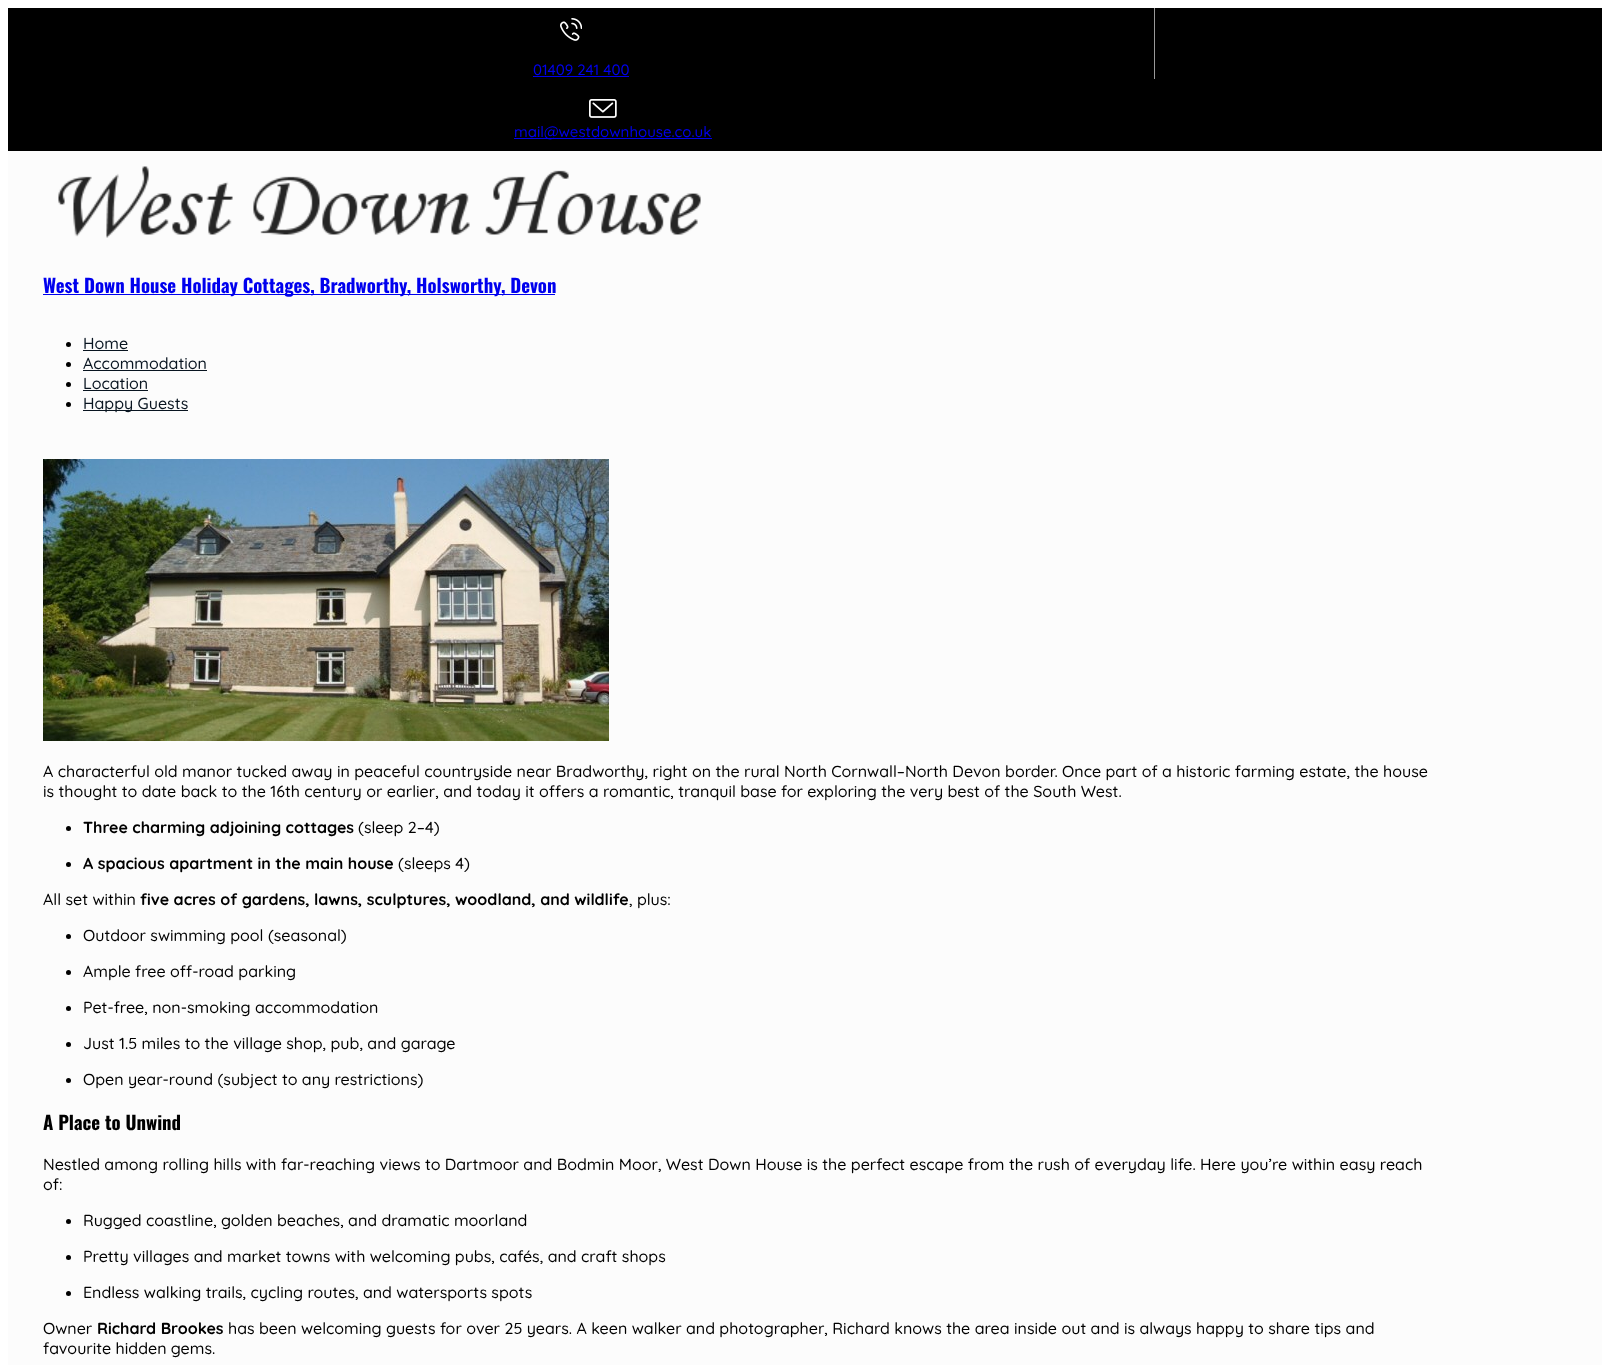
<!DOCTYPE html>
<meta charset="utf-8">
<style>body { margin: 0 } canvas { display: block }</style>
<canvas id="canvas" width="1610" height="1365"></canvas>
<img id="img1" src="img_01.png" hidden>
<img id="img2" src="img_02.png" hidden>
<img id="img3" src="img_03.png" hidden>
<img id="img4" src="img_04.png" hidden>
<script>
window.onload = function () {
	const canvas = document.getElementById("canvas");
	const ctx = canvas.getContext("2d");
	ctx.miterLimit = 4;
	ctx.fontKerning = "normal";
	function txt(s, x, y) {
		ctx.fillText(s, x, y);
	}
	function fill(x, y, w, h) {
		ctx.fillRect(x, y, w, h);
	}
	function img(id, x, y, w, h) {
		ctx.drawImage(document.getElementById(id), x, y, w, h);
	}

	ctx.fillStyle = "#FFFFFF";
	fill(0, 0, 1610, 1365);
	ctx.fillStyle = "#FCFCFC";
	fill(8, 151, 1594, 1214);
	ctx.fillStyle = "#000000";
	fill(8, 8, 1594, 143);
	ctx.fillStyle = "#999999";
	fill(1154, 8, 1, 71);
	img("img1", 560, 18, 22, 23);
	ctx.fillStyle = "#0000EE";
	fill(533, 76, 96, 1);
	img("img2", 589, 99, 28, 19);
	fill(514, 138, 198, 1);
	img("img3", 58, 166, 643, 72);
	fill(43, 294, 512, 1);
	ctx.fillStyle = "#000000";
	ctx.beginPath();
	ctx.arc(68.5, 344.5, 2.5, 0, Math.PI * 2);
	ctx.fill();
	ctx.fillStyle = "#081420";
	fill(83, 350, 45, 1);
	ctx.fillStyle = "#000000";
	ctx.beginPath();
	ctx.arc(68.5, 364.5, 2.5, 0, Math.PI * 2);
	ctx.fill();
	ctx.fillStyle = "#081420";
	fill(83, 370, 124, 1);
	ctx.fillStyle = "#000000";
	ctx.beginPath();
	ctx.arc(68.5, 384.5, 2.5, 0, Math.PI * 2);
	ctx.fill();
	ctx.fillStyle = "#081420";
	fill(83, 390, 65, 1);
	ctx.fillStyle = "#000000";
	ctx.beginPath();
	ctx.arc(68.5, 404.5, 2.5, 0, Math.PI * 2);
	ctx.fill();
	ctx.fillStyle = "#081420";
	fill(83, 410, 105, 1);
	img("img4", 43, 459, 566, 282);
	ctx.fillStyle = "#000000";
	ctx.beginPath();
	ctx.arc(68.5, 828.5, 2.5, 0, Math.PI * 2);
	ctx.fill();
	ctx.beginPath();
	ctx.arc(68.5, 864.5, 2.5, 0, Math.PI * 2);
	ctx.fill();
	ctx.beginPath();
	ctx.arc(68.5, 936.5, 2.5, 0, Math.PI * 2);
	ctx.fill();
	ctx.beginPath();
	ctx.arc(68.5, 972.5, 2.5, 0, Math.PI * 2);
	ctx.fill();
	ctx.beginPath();
	ctx.arc(68.5, 1008.5, 2.5, 0, Math.PI * 2);
	ctx.fill();
	ctx.beginPath();
	ctx.arc(68.5, 1044.5, 2.5, 0, Math.PI * 2);
	ctx.fill();
	ctx.beginPath();
	ctx.arc(68.5, 1080.5, 2.5, 0, Math.PI * 2);
	ctx.fill();
	ctx.beginPath();
	ctx.arc(68.5, 1221.5, 2.5, 0, Math.PI * 2);
	ctx.fill();
	ctx.beginPath();
	ctx.arc(68.5, 1257.5, 2.5, 0, Math.PI * 2);
	ctx.fill();
	ctx.beginPath();
	ctx.arc(68.5, 1293.5, 2.5, 0, Math.PI * 2);
	ctx.fill();
	ctx.font = "500 15px Quicksand";
	ctx.fillStyle = "#0000EE";
	txt("01409 241 400", 533, 75);
	txt("mail@westdownhouse.co.uk", 514, 137);
	ctx.font = "bold 18.75px Oswald";
	txt("West Down House Holiday Cottages, Bradworthy, Holsworthy, Devon", 43, 293);
	ctx.font = "500 16px Quicksand";
	ctx.fillStyle = "#081420";
	txt("Home", 83, 349);
	txt("Accommodation", 83, 369);
	txt("Location", 83, 389);
	txt("Happy Guests", 83, 409);
	ctx.fillStyle = "#000000";
	txt("A characterful old manor tucked away in peaceful countryside near Bradworthy, right on the rural North Cornwall–North Devon border. Once part of a historic farming estate, the house", 43, 777);
	txt("is thought to date back to the 16th century or earlier, and today it offers a romantic, tranquil base for exploring the very best of the South West.", 43, 797);
	ctx.font = "bold 16px Quicksand";
	txt("Three charming adjoining cottages", 83, 833);
	ctx.font = "500 16px Quicksand";
	txt("(sleep 2–4)", 358, 833);
	ctx.font = "bold 16px Quicksand";
	txt("A spacious apartment in the main house", 83, 869);
	ctx.font = "500 16px Quicksand";
	txt("(sleeps 4)", 398, 869);
	txt("All set within", 43, 905);
	ctx.font = "bold 16px Quicksand";
	txt("five acres of gardens, lawns, sculptures, woodland, and wildlife", 140, 905);
	ctx.font = "500 16px Quicksand";
	txt(", plus:", 629, 905);
	txt("Outdoor swimming pool (seasonal)", 83, 941);
	txt("Ample free off-road parking", 83, 977);
	txt("Pet-free, non-smoking accommodation", 83, 1013);
	txt("Just 1.5 miles to the village shop, pub, and garage", 83, 1049);
	txt("Open year-round (subject to any restrictions)", 83, 1085);
	ctx.font = "bold 18.75px Oswald";
	txt("A Place to Unwind", 43, 1130);
	ctx.font = "500 16px Quicksand";
	txt("Nestled among rolling hills with far-reaching views to Dartmoor and Bodmin Moor, West Down House is the perfect escape from the rush of everyday life. Here you’re within easy reach", 43, 1170);
	txt("of:", 43, 1190);
	txt("Rugged coastline, golden beaches, and dramatic moorland", 83, 1226);
	txt("Pretty villages and market towns with welcoming pubs, cafés, and craft shops", 83, 1262);
	txt("Endless walking trails, cycling routes, and watersports spots", 83, 1298);
	txt("Owner", 43, 1334);
	ctx.font = "bold 16px Quicksand";
	txt("Richard Brookes", 97, 1334);
	ctx.font = "500 16px Quicksand";
	txt("has been welcoming guests for over 25 years. A keen walker and photographer, Richard knows the area inside out and is always happy to share tips and", 228, 1334);
	txt("favourite hidden gems.", 43, 1354);
};
</script>
